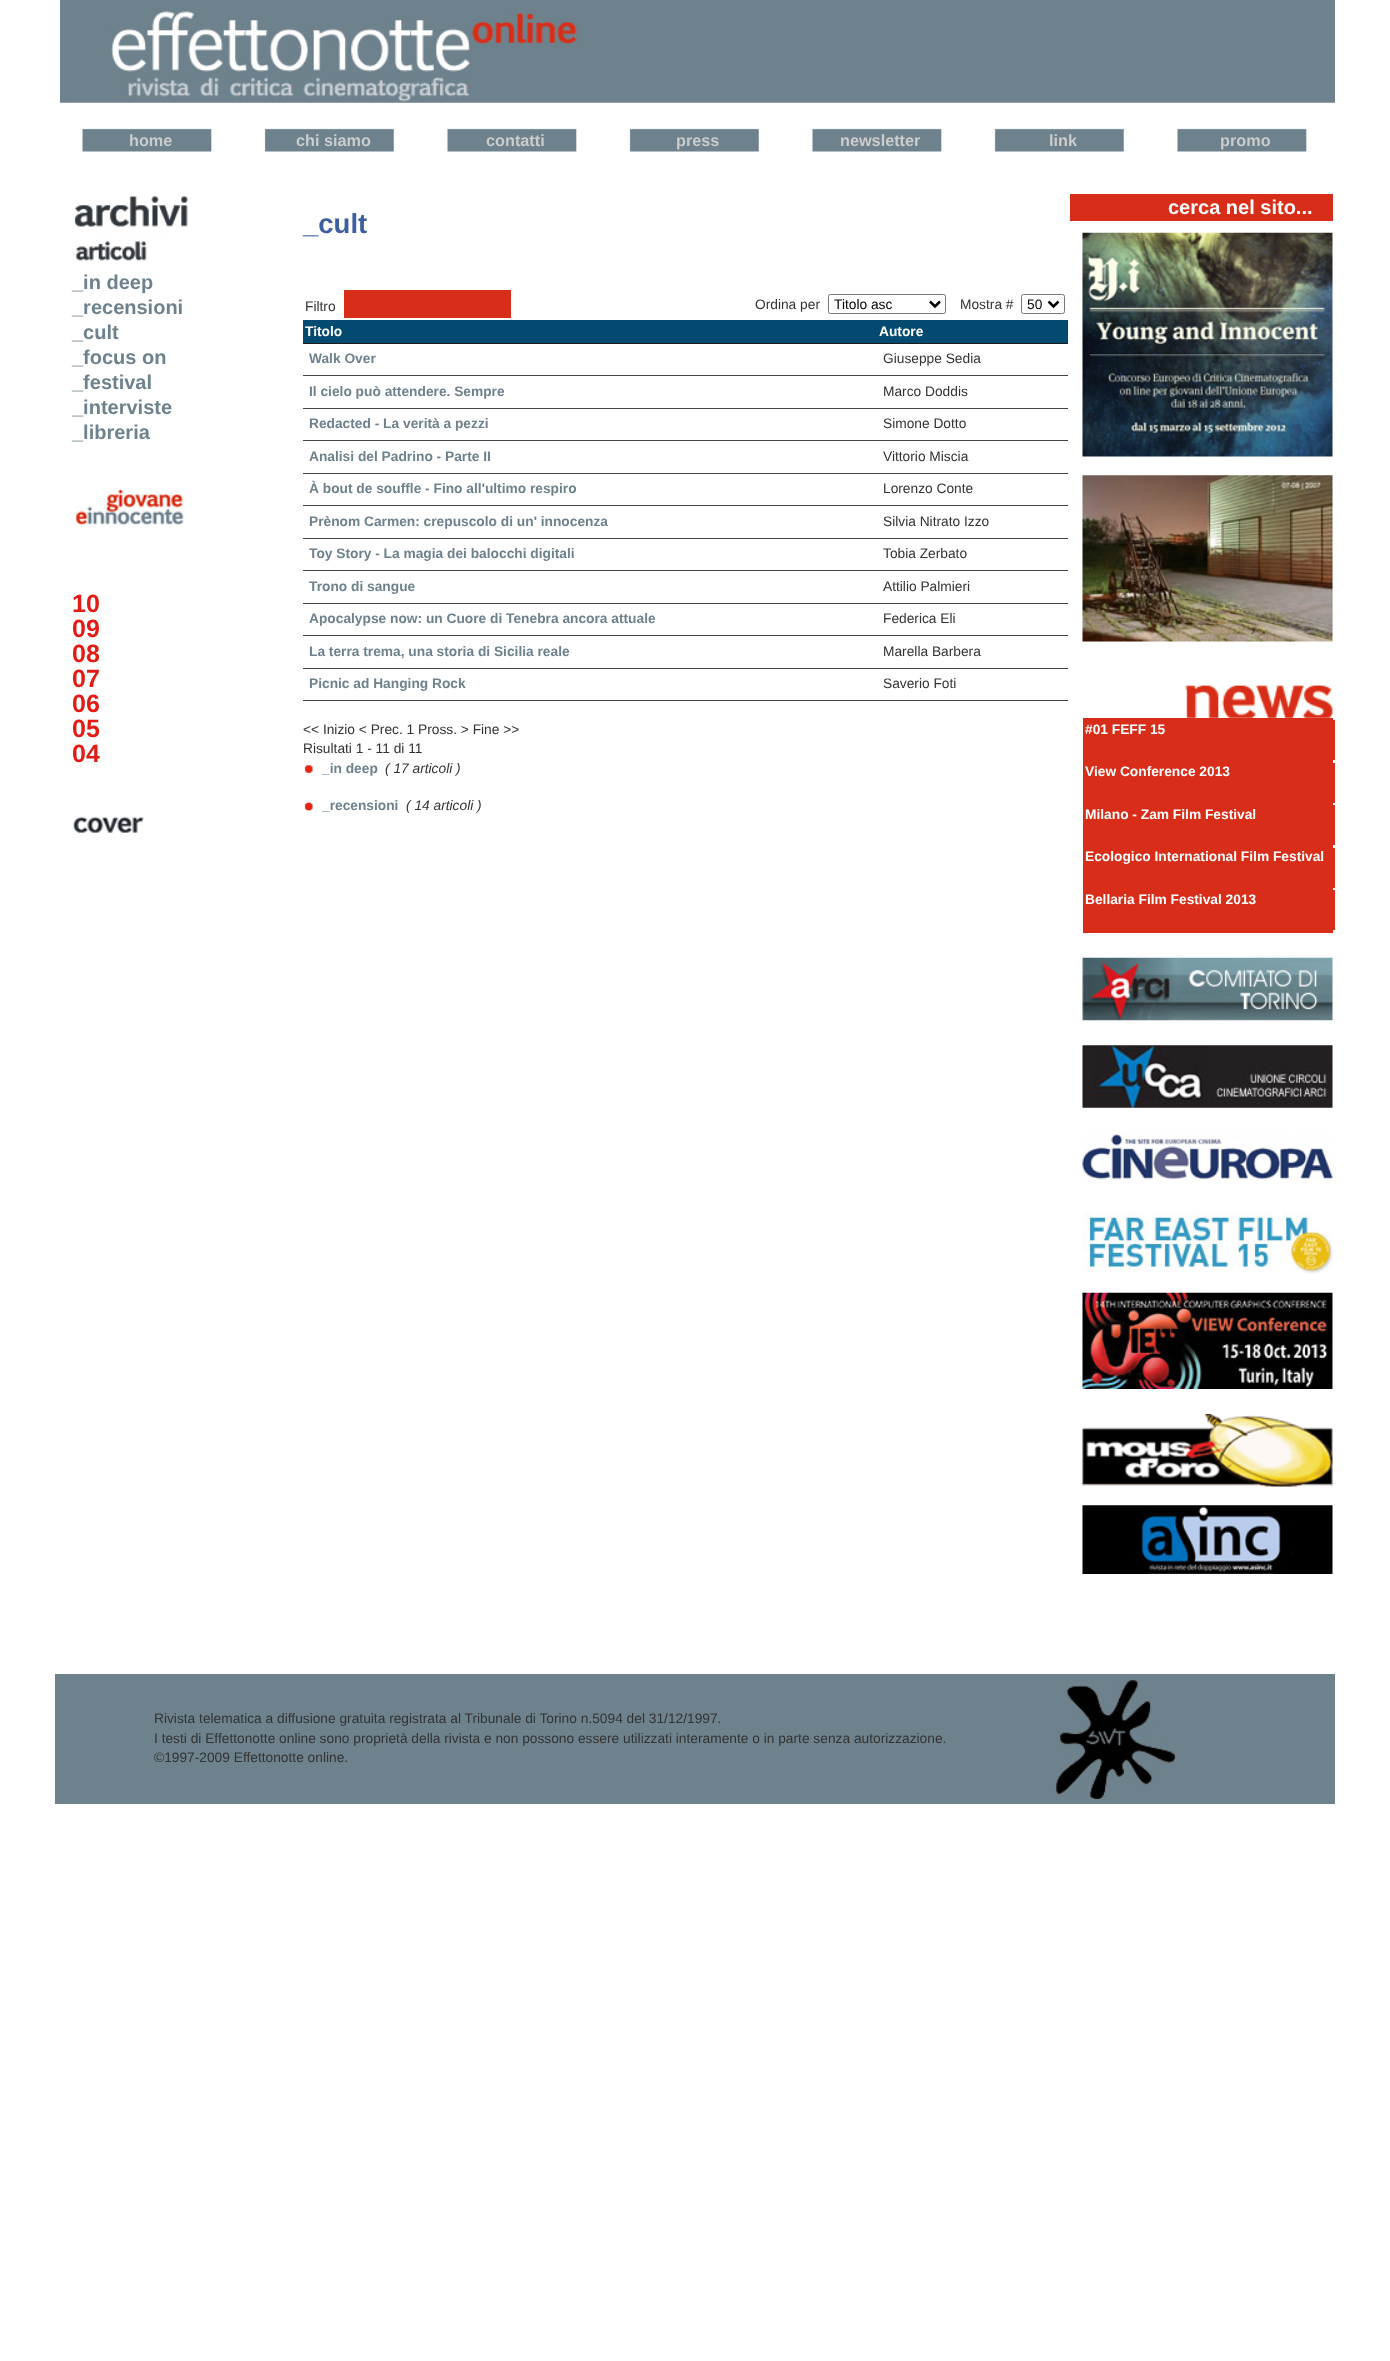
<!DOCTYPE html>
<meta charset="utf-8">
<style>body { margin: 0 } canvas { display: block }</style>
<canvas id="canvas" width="1390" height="2361"></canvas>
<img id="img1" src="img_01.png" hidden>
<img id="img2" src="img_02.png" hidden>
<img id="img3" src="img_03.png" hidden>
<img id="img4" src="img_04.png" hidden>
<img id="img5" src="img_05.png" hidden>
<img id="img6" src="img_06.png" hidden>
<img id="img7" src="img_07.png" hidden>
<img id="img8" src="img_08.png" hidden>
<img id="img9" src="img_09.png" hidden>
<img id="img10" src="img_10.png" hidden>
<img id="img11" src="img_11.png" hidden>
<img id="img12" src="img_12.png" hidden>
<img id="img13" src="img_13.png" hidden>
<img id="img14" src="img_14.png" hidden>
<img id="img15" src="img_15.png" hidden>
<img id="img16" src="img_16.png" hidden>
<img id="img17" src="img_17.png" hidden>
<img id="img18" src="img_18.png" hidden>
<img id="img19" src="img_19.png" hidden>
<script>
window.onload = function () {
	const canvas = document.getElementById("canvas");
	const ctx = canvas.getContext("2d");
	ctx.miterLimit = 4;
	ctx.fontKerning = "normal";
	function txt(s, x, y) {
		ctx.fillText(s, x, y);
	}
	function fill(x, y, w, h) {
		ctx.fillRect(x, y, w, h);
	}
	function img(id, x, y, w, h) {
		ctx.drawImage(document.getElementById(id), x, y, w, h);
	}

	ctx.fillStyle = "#FFFFFF";
	fill(0, 0, 1390, 2361);
	img("img1", 60, 0, 1275, 103);
	img("img2", 82, 128, 130, 24);
	img("img3", 264, 128, 130, 24);
	img("img2", 447, 128, 130, 24);
	img("img3", 629, 128, 130, 24);
	img("img2", 812, 128, 130, 24);
	img("img3", 994, 128, 130, 24);
	img("img2", 1177, 128, 130, 24);
	img("img4", 74, 196, 114, 65);
	img("img5", 75, 489, 109, 37);
	img("img6", 73, 816, 71, 17);
	ctx.fillStyle = "#D82D19";
	fill(344, 290, 167, 28);
	ctx.beginPath();
	ctx.roundRect(828.5, 294.5, 117, 19, 2);
	ctx.strokeStyle = "#767676";
	ctx.stroke();
	ctx.beginPath();
	ctx.moveTo(930, 301.5);
	ctx.lineTo(935, 306.5);
	ctx.lineTo(940, 301.5);
	ctx.strokeStyle = "#000000";
	ctx.lineWidth = 2.5;
	ctx.stroke();
	ctx.beginPath();
	ctx.roundRect(1021.5, 294.5, 43, 19, 2);
	ctx.strokeStyle = "#767676";
	ctx.lineWidth = 1;
	ctx.stroke();
	ctx.beginPath();
	ctx.moveTo(1048.5, 301.5);
	ctx.lineTo(1053.5, 306.5);
	ctx.lineTo(1058.5, 301.5);
	ctx.strokeStyle = "#000000";
	ctx.lineWidth = 2.5;
	ctx.stroke();
	ctx.fillStyle = "#034A70";
	fill(303, 320, 765, 23);
	ctx.fillStyle = "#1D1D1D";
	fill(303, 343, 765, 1);
	ctx.fillStyle = "#444444";
	fill(303, 375, 765, 1);
	fill(303, 408, 765, 1);
	fill(303, 440, 765, 1);
	fill(303, 473, 765, 1);
	fill(303, 505, 765, 1);
	fill(303, 538, 765, 1);
	fill(303, 570, 765, 1);
	fill(303, 603, 765, 1);
	fill(303, 635, 765, 1);
	fill(303, 668, 765, 1);
	fill(303, 700, 765, 1);
	img("img7", 304, 765, 9, 8);
	img("img8", 304, 802, 9, 9);
	ctx.fillStyle = "#D82D19";
	fill(1070, 194, 263, 27);
	img("img9", 1082, 232, 251, 225);
	img("img10", 1082, 475, 251, 167);
	img("img11", 1185, 685, 148, 33);
	fill(1083, 718, 250, 215);
	fill(1333, 720, 2, 40);
	fill(1333, 763, 2, 40);
	fill(1333, 805, 2, 40);
	fill(1333, 848, 2, 40);
	fill(1333, 890, 2, 40);
	img("img12", 1082, 957, 251, 64);
	img("img13", 1082, 1045, 251, 63);
	img("img14", 1082, 1134, 251, 46);
	img("img15", 1082, 1211, 251, 63);
	img("img16", 1082, 1292, 251, 97);
	img("img17", 1082, 1414, 251, 73);
	img("img18", 1082, 1505, 251, 69);
	ctx.fillStyle = "#6E828D";
	fill(55, 1674, 1280, 130);
	img("img19", 1055, 1679, 120, 120);
	ctx.font = "bold 16.25px Liberation Sans";
	ctx.fillStyle = "#CCCCCC";
	txt("home", 129, 146);
	txt("chi siamo", 296, 146);
	txt("contatti", 486, 146);
	txt("press", 676, 146);
	txt("newsletter", 840, 146);
	txt("link", 1049, 146);
	txt("promo", 1220, 146);
	ctx.font = "bold 20px Liberation Sans";
	ctx.fillStyle = "#6E828D";
	txt("_in deep", 72, 289);
	txt("_recensioni", 72, 314);
	txt("_cult", 72, 339);
	txt("_focus on", 72, 364);
	txt("_festival", 72, 389);
	txt("_interviste", 72, 414);
	txt("_libreria", 72, 439);
	ctx.font = "bold 25px Liberation Sans";
	ctx.fillStyle = "#E41A15";
	txt("10", 72, 612);
	txt("09", 72, 637);
	txt("08", 72, 662);
	txt("07", 72, 687);
	txt("06", 72, 712);
	txt("05", 72, 737);
	txt("04", 72, 762);
	ctx.font = "bold 27.5px Liberation Sans";
	ctx.fillStyle = "#3D5EA0";
	txt("_cult", 303, 233);
	ctx.font = "13.75px Liberation Sans";
	ctx.fillStyle = "#333333";
	txt("Filtro", 305, 311);
	txt("Ordina per", 755, 309);
	ctx.fillStyle = "#000000";
	txt("Titolo asc", 834, 309);
	ctx.fillStyle = "#333333";
	txt("Mostra #", 960, 309);
	ctx.fillStyle = "#000000";
	txt("50", 1027, 309);
	ctx.font = "bold 13.75px Liberation Sans";
	ctx.fillStyle = "#FFFFFF";
	txt("Titolo", 305, 336);
	txt("Autore", 879, 336);
	ctx.fillStyle = "#6E828D";
	txt("Walk Over", 309, 363);
	ctx.font = "13.75px Liberation Sans";
	ctx.fillStyle = "#333333";
	txt("Giuseppe Sedia", 883, 363);
	ctx.font = "bold 13.75px Liberation Sans";
	ctx.fillStyle = "#6E828D";
	txt("Il cielo può attendere. Sempre", 309, 396);
	ctx.font = "13.75px Liberation Sans";
	ctx.fillStyle = "#333333";
	txt("Marco Doddis", 883, 396);
	ctx.font = "bold 13.75px Liberation Sans";
	ctx.fillStyle = "#6E828D";
	txt("Redacted - La verità a pezzi", 309, 428);
	ctx.font = "13.75px Liberation Sans";
	ctx.fillStyle = "#333333";
	txt("Simone Dotto", 883, 428);
	ctx.font = "bold 13.75px Liberation Sans";
	ctx.fillStyle = "#6E828D";
	txt("Analisi del Padrino - Parte II", 309, 461);
	ctx.font = "13.75px Liberation Sans";
	ctx.fillStyle = "#333333";
	txt("Vittorio Miscia", 883, 461);
	ctx.font = "bold 13.75px Liberation Sans";
	ctx.fillStyle = "#6E828D";
	txt("À bout de souffle - Fino all'ultimo respiro", 309, 493);
	ctx.font = "13.75px Liberation Sans";
	ctx.fillStyle = "#333333";
	txt("Lorenzo Conte", 883, 493);
	ctx.font = "bold 13.75px Liberation Sans";
	ctx.fillStyle = "#6E828D";
	txt("Prènom Carmen: crepuscolo di un' innocenza", 309, 526);
	ctx.font = "13.75px Liberation Sans";
	ctx.fillStyle = "#333333";
	txt("Silvia Nitrato Izzo", 883, 526);
	ctx.font = "bold 13.75px Liberation Sans";
	ctx.fillStyle = "#6E828D";
	txt("Toy Story - La magia dei balocchi digitali", 309, 558);
	ctx.font = "13.75px Liberation Sans";
	ctx.fillStyle = "#333333";
	txt("Tobia Zerbato", 883, 558);
	ctx.font = "bold 13.75px Liberation Sans";
	ctx.fillStyle = "#6E828D";
	txt("Trono di sangue", 309, 591);
	ctx.font = "13.75px Liberation Sans";
	ctx.fillStyle = "#333333";
	txt("Attilio Palmieri", 883, 591);
	ctx.font = "bold 13.75px Liberation Sans";
	ctx.fillStyle = "#6E828D";
	txt("Apocalypse now: un Cuore di Tenebra ancora attuale", 309, 623);
	ctx.font = "13.75px Liberation Sans";
	ctx.fillStyle = "#333333";
	txt("Federica Eli", 883, 623);
	ctx.font = "bold 13.75px Liberation Sans";
	ctx.fillStyle = "#6E828D";
	txt("La terra trema, una storia di Sicilia reale", 309, 656);
	ctx.font = "13.75px Liberation Sans";
	ctx.fillStyle = "#333333";
	txt("Marella Barbera", 883, 656);
	ctx.font = "bold 13.75px Liberation Sans";
	ctx.fillStyle = "#6E828D";
	txt("Picnic ad Hanging Rock", 309, 688);
	ctx.font = "13.75px Liberation Sans";
	ctx.fillStyle = "#333333";
	txt("Saverio Foti", 883, 688);
	txt("<< Inizio < Prec. 1 Pross. > Fine >>", 303, 734);
	txt("Risultati 1 - 11 di 11", 303, 753);
	ctx.font = "bold 13.75px Liberation Sans";
	ctx.fillStyle = "#6E828D";
	txt("_in deep", 322, 773);
	ctx.font = "italic 13.75px Liberation Sans";
	ctx.fillStyle = "#333333";
	txt("( 17 articoli )", 385, 773);
	ctx.font = "bold 13.75px Liberation Sans";
	ctx.fillStyle = "#6E828D";
	txt("_recensioni", 322, 810);
	ctx.font = "italic 13.75px Liberation Sans";
	ctx.fillStyle = "#333333";
	txt("( 14 articoli )", 406, 810);
	ctx.font = "bold 20px Liberation Sans";
	ctx.fillStyle = "#FFFFFF";
	txt("cerca nel sito...", 1168, 214);
	ctx.font = "bold 13.75px Liberation Sans";
	txt("#01 FEFF 15", 1085, 734);
	txt("View Conference 2013", 1085, 776);
	txt("Milano - Zam Film Festival", 1085, 819);
	txt("Ecologico International Film Festival", 1085, 861);
	txt("Bellaria Film Festival 2013", 1085, 904);
	ctx.font = "13.75px Liberation Sans";
	ctx.fillStyle = "#333333";
	txt("Rivista telematica a diffusione gratuita registrata al Tribunale di Torino n.5094 del 31/12/1997.", 154, 1723);
	txt("I testi di Effettonotte online sono proprietà della rivista e non possono essere utilizzati interamente o in parte senza autorizzazione.", 154, 1743);
	txt("©1997-2009 Effettonotte online.", 154, 1762);
};
</script>
